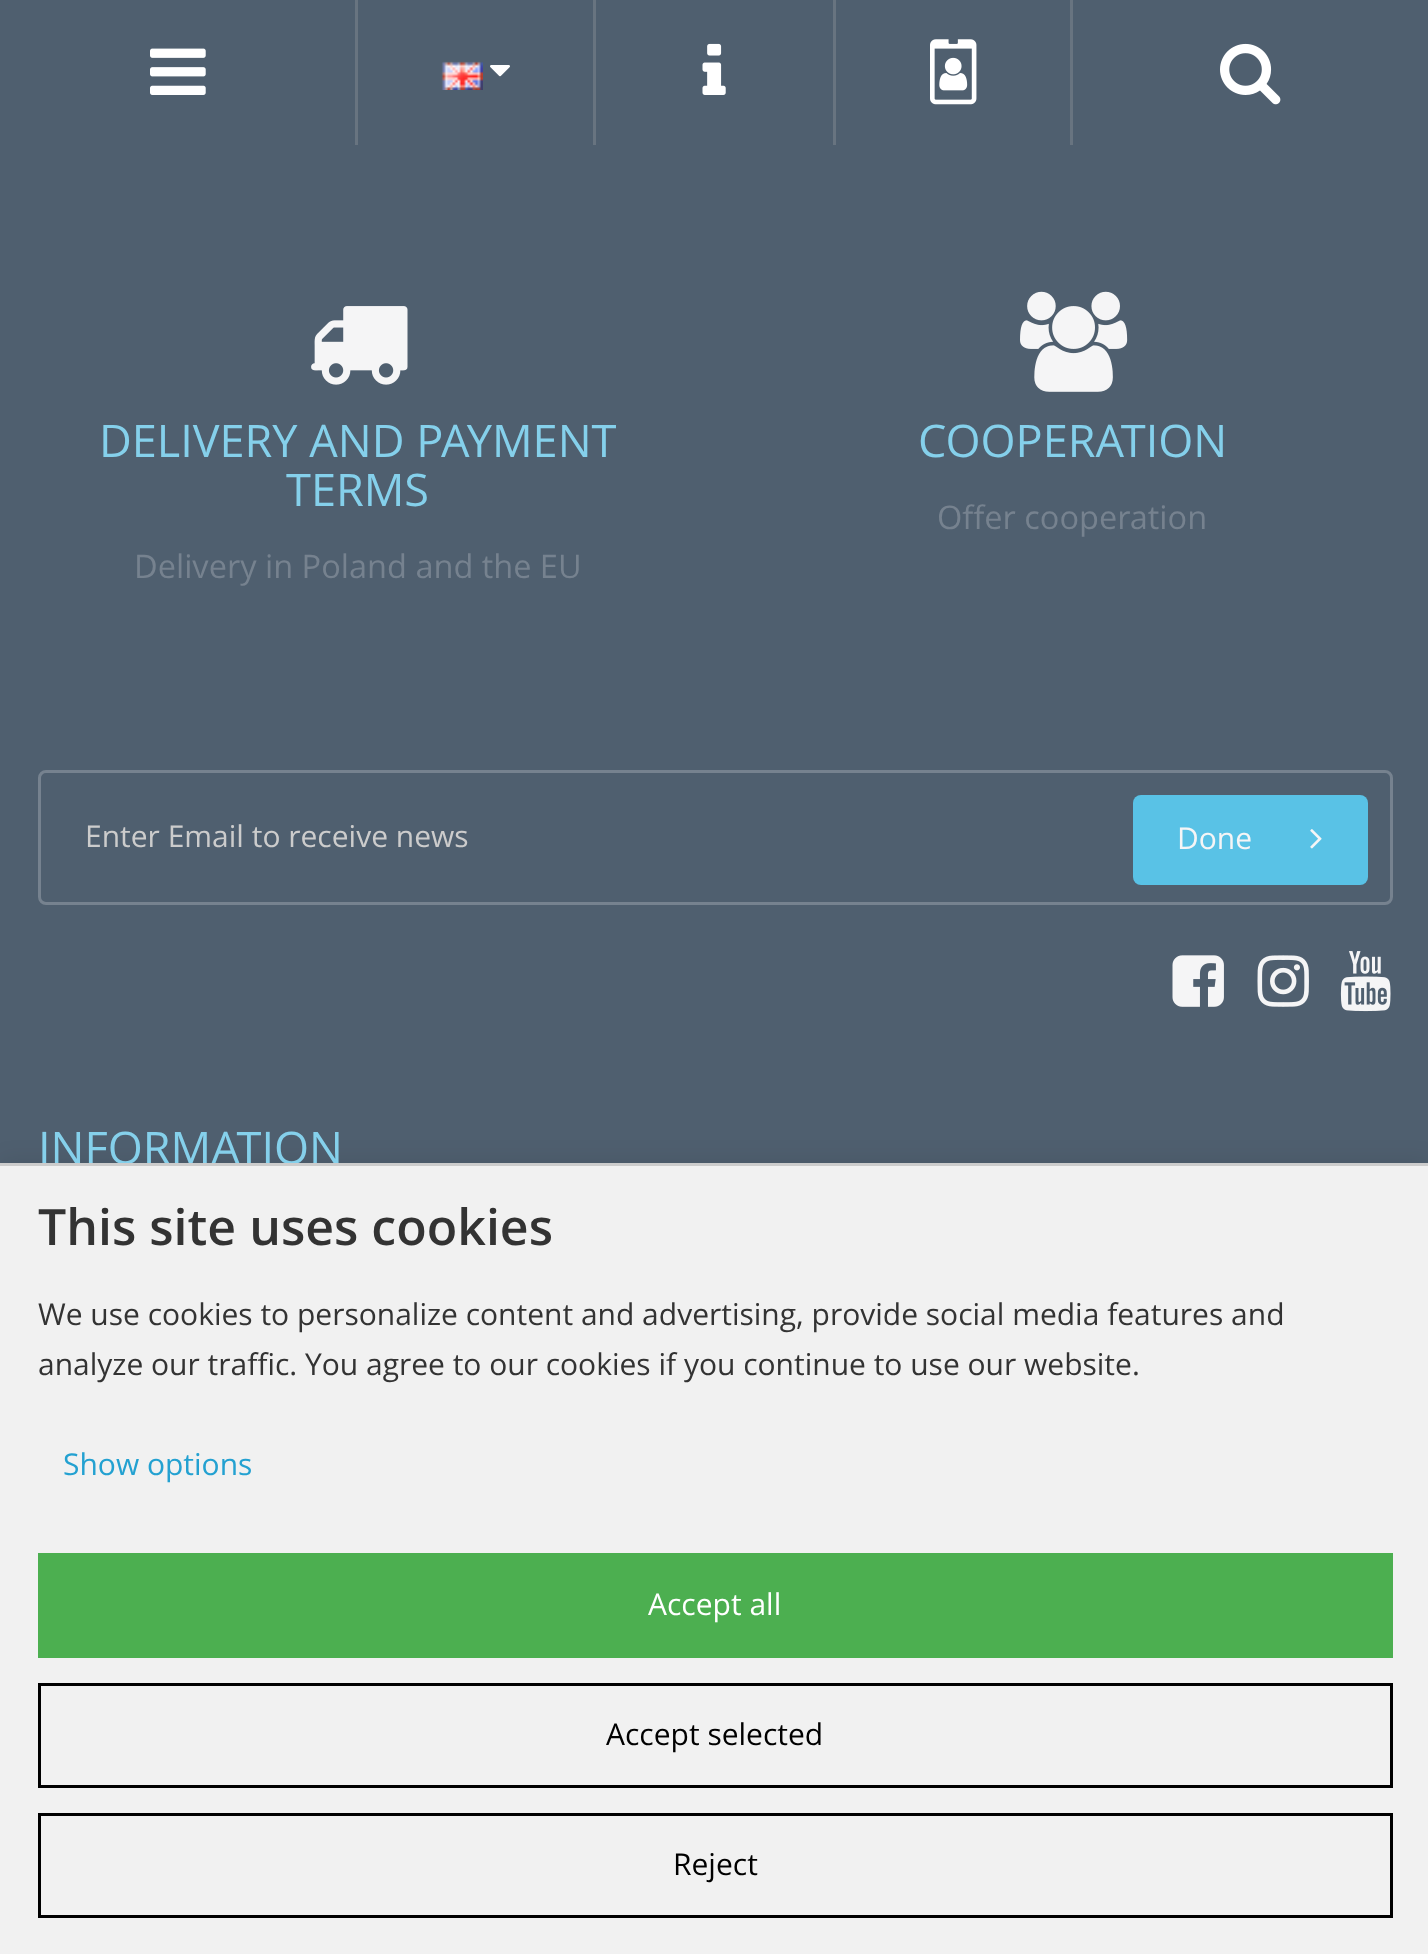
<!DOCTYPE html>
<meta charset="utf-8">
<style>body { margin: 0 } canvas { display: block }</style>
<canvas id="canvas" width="1428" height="1954"></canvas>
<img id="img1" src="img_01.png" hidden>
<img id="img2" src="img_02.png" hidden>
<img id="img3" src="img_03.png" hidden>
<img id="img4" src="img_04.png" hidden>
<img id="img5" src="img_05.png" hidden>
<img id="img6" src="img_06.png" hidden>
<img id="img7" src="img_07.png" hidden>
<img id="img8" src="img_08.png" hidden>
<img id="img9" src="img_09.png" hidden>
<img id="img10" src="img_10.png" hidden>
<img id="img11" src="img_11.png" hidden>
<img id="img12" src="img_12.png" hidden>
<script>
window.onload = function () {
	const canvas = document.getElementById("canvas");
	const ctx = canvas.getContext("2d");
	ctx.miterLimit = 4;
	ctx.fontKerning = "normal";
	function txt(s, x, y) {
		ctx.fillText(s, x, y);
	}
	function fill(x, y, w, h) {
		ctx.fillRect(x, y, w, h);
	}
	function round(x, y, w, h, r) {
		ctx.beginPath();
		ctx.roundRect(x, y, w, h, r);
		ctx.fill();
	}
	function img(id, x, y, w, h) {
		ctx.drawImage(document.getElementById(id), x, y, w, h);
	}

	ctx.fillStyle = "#4F5F6F";
	fill(0, 0, 1428, 1954);
	ctx.fillStyle = "#687480";
	fill(355, 0, 3, 145);
	img("img1", 150, 48, 56, 47);
	fill(593, 0, 3, 145);
	img("img2", 441, 61, 42, 29);
	img("img3", 490, 65, 20, 12);
	fill(833, 0, 3, 145);
	img("img4", 702, 43, 24, 52);
	fill(1070, 0, 3, 145);
	img("img5", 930, 39, 47, 66);
	img("img6", 1220, 43, 61, 62);
	img("img7", 311, 306, 97, 79);
	img("img8", 1020, 291, 108, 101);
	ctx.beginPath();
	ctx.roundRect(39.5, 771.5, 1352, 132, 6.5);
	ctx.strokeStyle = "#76828F";
	ctx.lineWidth = 3;
	ctx.stroke();
	ctx.fillStyle = "#59C2E6";
	round(1133, 795, 235, 90, 8);
	img("img9", 1310, 829, 12, 20);
	img("img10", 1172, 955, 52, 52);
	img("img11", 1257, 955, 52, 52);
	img("img12", 1340, 951, 51, 61);
	ctx.fillStyle = "rgba(0, 0, 0, 0.1)";
	ctx.filter = "blur(12.5px)";
	ctx.beginPath();
	ctx.rect(0, 1163, 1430, 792);
	ctx.fill();
	ctx.filter = "none";
	ctx.fillStyle = "#F1F1F1";
	fill(0, 1166, 1428, 788);
	ctx.fillStyle = "#4CAF50";
	fill(38, 1553, 1355, 105);
	ctx.strokeStyle = "#000000";
	ctx.strokeRect(39.5, 1684.5, 1352, 102);
	ctx.strokeRect(39.5, 1814.5, 1352, 102);
	ctx.font = "45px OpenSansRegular";
	ctx.fillStyle = "#85D0EB";
	txt("DELIVERY AND PAYMENT", 99, 457);
	txt("TERMS", 286, 506);
	ctx.font = "32.5px OpenSansRegular";
	ctx.fillStyle = "#76828F";
	txt("Delivery in Poland and the EU", 134, 578);
	ctx.font = "45px OpenSansRegular";
	ctx.fillStyle = "#85D0EB";
	txt("COOPERATION", 918, 457);
	ctx.font = "32.5px OpenSansRegular";
	ctx.fillStyle = "#76828F";
	txt("Offer cooperation", 937, 529);
	ctx.font = "30px Open Sans";
	ctx.fillStyle = "#CCCCCC";
	txt("Enter Email to receive news", 85, 847);
	ctx.fillStyle = "#F5F5F6";
	txt("Done", 1177, 849);
	ctx.font = "45px OpenSansRegular";
	ctx.fillStyle = "#85D0EB";
	txt("INFORMATION", 38, 1164);
	ctx.fillStyle = "#CCCCCC";
	fill(0, 1163, 1428, 3);
	ctx.font = "600 50px Open Sans";
	ctx.fillStyle = "#333333";
	txt("This site uses cookies", 38, 1245);
	ctx.font = "30px Open Sans";
	txt("We use cookies to personalize content and advertising, provide social media features and", 38, 1325);
	txt("analyze our traffic. You agree to our cookies if you continue to use our website.", 38, 1375);
	ctx.fillStyle = "#23A1D1";
	txt("Show options", 63, 1475);
	ctx.fillStyle = "#FFFFFF";
	txt("Accept all", 648, 1615);
	ctx.fillStyle = "#000000";
	txt("Accept selected", 606, 1745);
	txt("Reject", 673, 1875);
};
</script>
